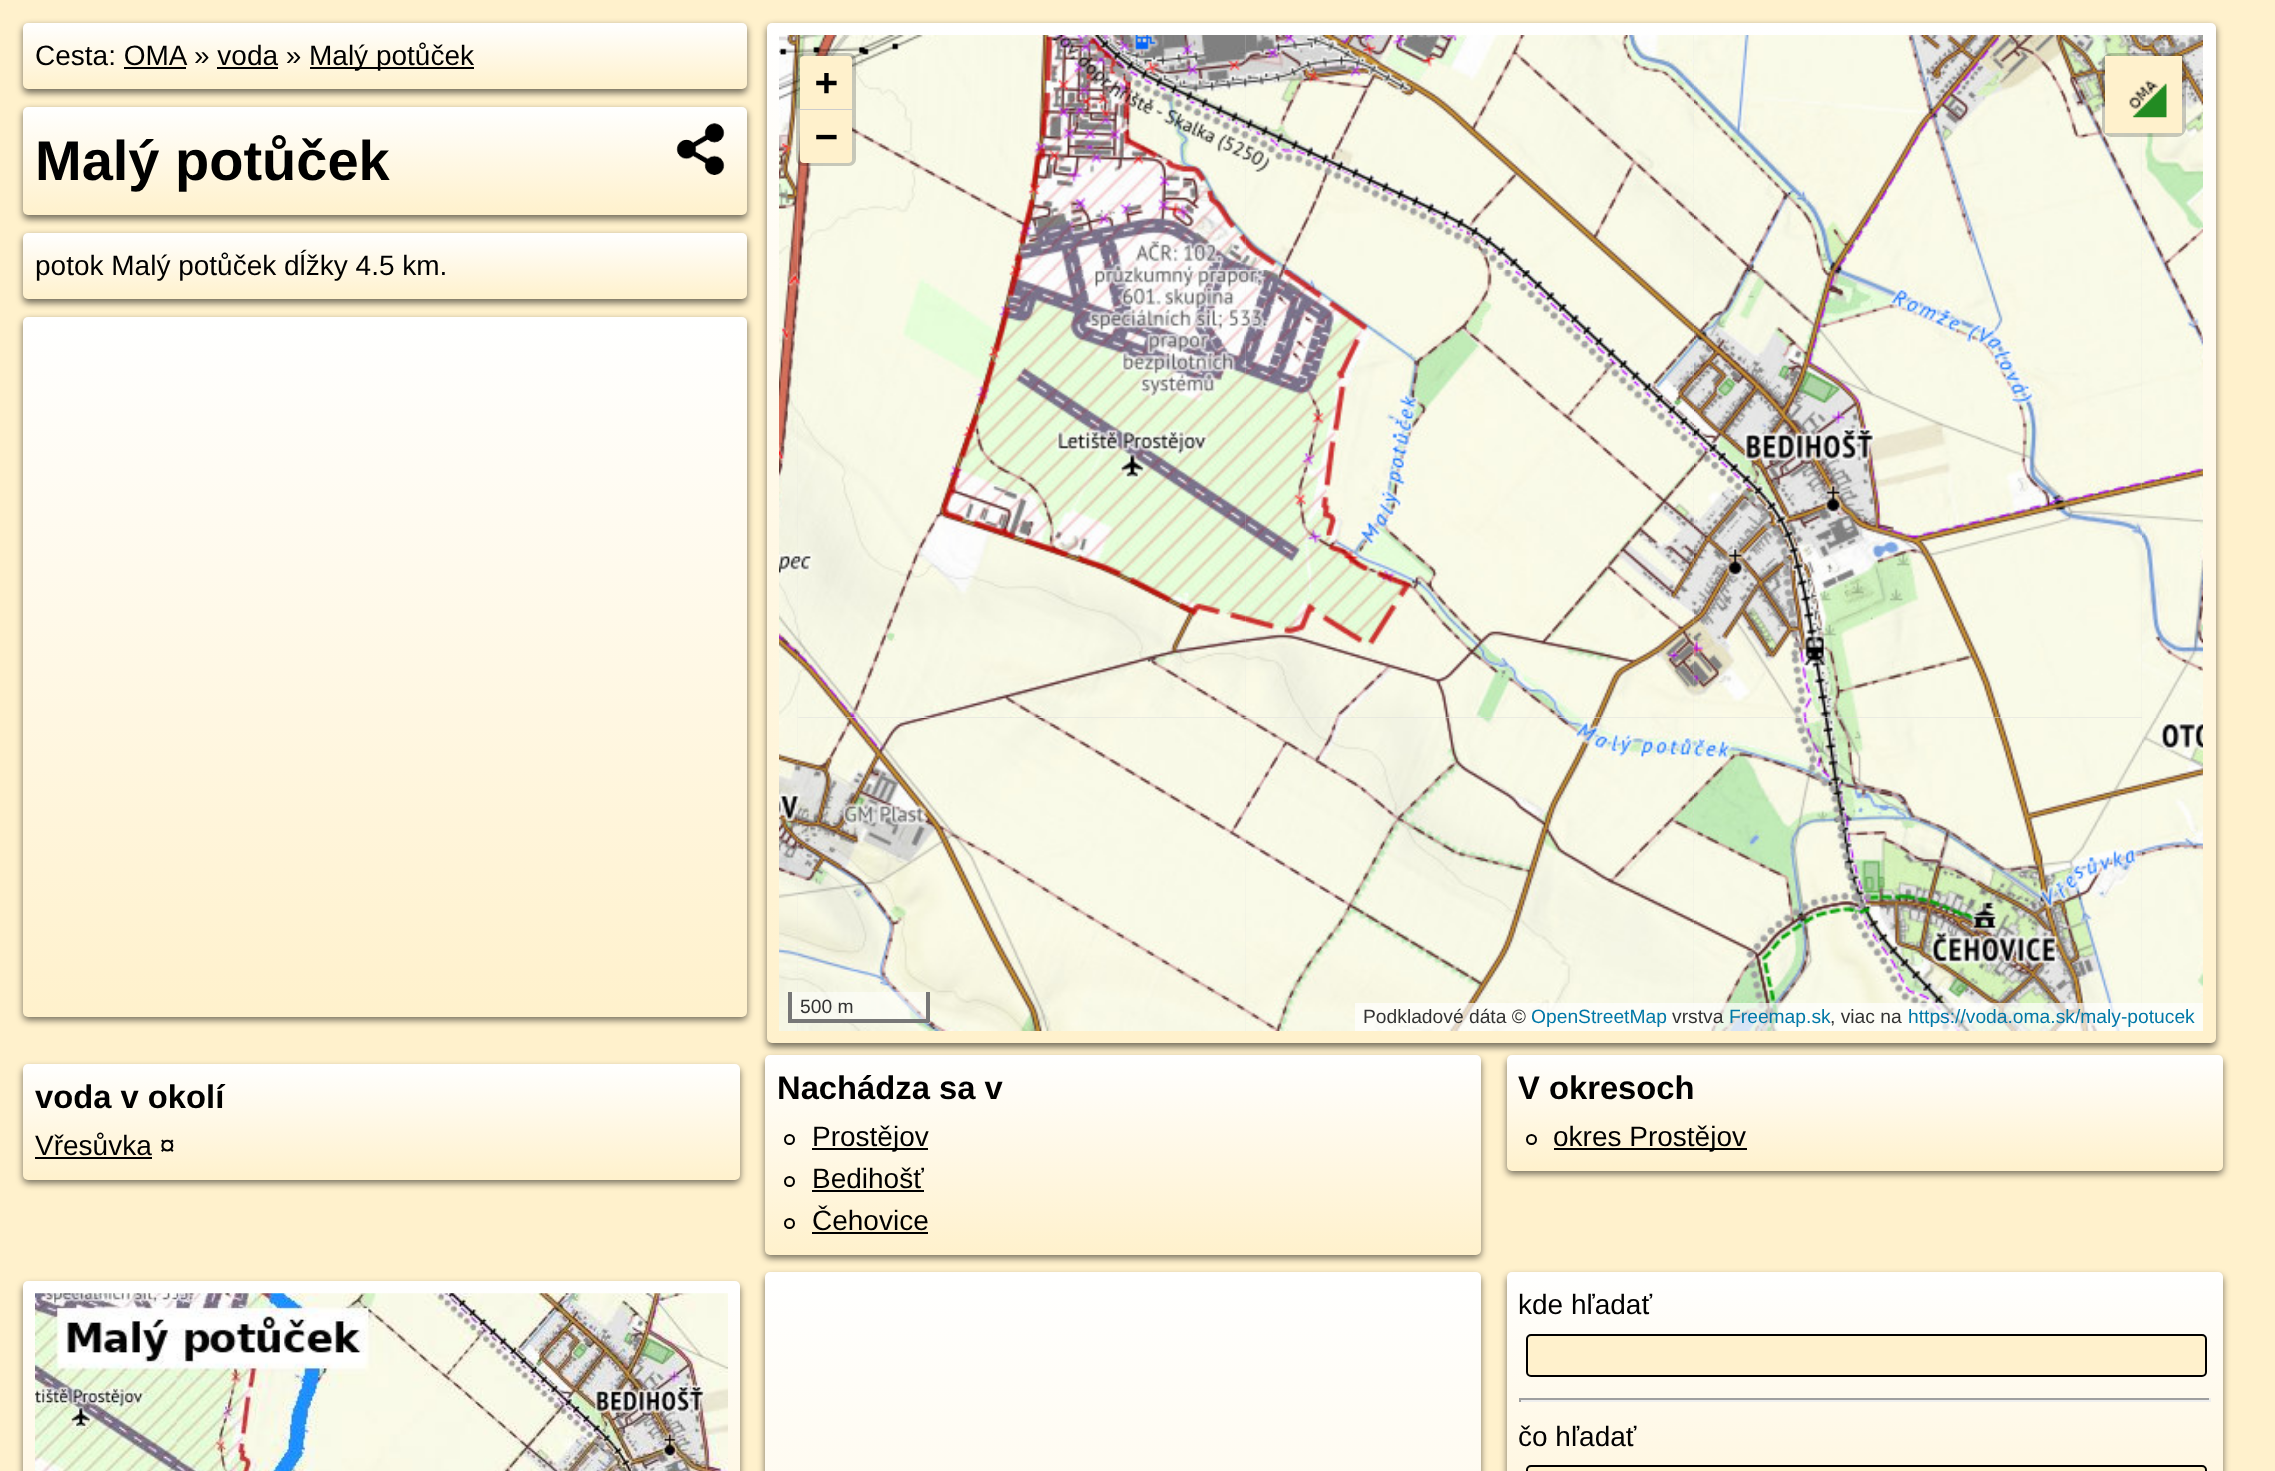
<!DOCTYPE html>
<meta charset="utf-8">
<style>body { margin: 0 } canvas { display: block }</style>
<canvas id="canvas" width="2275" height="1471"></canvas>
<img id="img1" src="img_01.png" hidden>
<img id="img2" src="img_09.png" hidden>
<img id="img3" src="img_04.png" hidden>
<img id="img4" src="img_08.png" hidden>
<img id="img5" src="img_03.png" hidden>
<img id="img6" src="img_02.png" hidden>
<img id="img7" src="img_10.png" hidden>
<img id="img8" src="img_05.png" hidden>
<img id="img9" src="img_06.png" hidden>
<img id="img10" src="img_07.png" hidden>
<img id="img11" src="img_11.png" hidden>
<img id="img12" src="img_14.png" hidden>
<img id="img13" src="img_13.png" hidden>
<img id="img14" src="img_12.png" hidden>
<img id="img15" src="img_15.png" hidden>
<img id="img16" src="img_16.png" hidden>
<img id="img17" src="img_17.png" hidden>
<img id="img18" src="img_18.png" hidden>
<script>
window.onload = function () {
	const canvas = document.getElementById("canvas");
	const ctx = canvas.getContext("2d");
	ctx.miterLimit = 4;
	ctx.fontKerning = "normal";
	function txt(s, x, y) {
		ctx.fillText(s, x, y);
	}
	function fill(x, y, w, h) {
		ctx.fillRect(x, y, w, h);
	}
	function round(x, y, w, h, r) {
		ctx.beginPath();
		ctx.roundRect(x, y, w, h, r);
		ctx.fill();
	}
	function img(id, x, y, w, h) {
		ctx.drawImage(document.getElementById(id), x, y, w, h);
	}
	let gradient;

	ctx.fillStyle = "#FFF1CC";
	fill(0, 0, 2275, 1471);
	ctx.fillStyle = "rgba(0, 0, 0, 0.55)";
	ctx.filter = "blur(3.5px)";
	ctx.beginPath();
	ctx.roundRect(23, 26, 724, 67, 5);
	ctx.fill();
	ctx.filter = "none";
	gradient = ctx.createLinearGradient(385, 23, 385, 89);
	gradient.addColorStop(0, "#FFFFFF");
	gradient.addColorStop(1, "#FFF1CC");
	ctx.fillStyle = gradient;
	round(23, 23, 724, 66, 5);
	ctx.fillStyle = "#000000";
	fill(310, 67, 164, 2);
	fill(124, 67, 62, 2);
	fill(217, 67, 61, 2);
	ctx.fillStyle = "rgba(0, 0, 0, 0.55)";
	ctx.filter = "blur(3.5px)";
	ctx.beginPath();
	ctx.roundRect(23, 110, 724, 109, 5);
	ctx.fill();
	ctx.filter = "none";
	gradient = ctx.createLinearGradient(385, 107, 385, 215);
	gradient.addColorStop(0, "#FFFFFF");
	gradient.addColorStop(1, "#FFF1CC");
	ctx.fillStyle = gradient;
	round(23, 107, 724, 108, 5);
	img("img1", 676, 123, 49, 52);
	ctx.fillStyle = "rgba(0, 0, 0, 0.55)";
	ctx.filter = "blur(3.5px)";
	ctx.beginPath();
	ctx.roundRect(23, 236, 724, 67, 5);
	ctx.fill();
	ctx.filter = "none";
	gradient = ctx.createLinearGradient(385, 233, 385, 299);
	gradient.addColorStop(0, "#FFFFFF");
	gradient.addColorStop(1, "#FFF1CC");
	ctx.fillStyle = gradient;
	round(23, 233, 724, 66, 5);
	ctx.fillStyle = "rgba(0, 0, 0, 0.55)";
	ctx.filter = "blur(3.5px)";
	ctx.beginPath();
	ctx.roundRect(23, 320, 724, 700, 5);
	ctx.fill();
	ctx.filter = "none";
	gradient = ctx.createLinearGradient(385, 317, 385, 1017);
	gradient.addColorStop(0, "#FFFFFF");
	gradient.addColorStop(1, "#FFF1CC");
	ctx.fillStyle = gradient;
	round(23, 317, 724, 700, 5);
	ctx.fillStyle = "rgba(0, 0, 0, 0.55)";
	ctx.filter = "blur(3.5px)";
	ctx.beginPath();
	ctx.roundRect(767, 26, 1449, 1021, 5);
	ctx.fill();
	ctx.filter = "none";
	gradient = ctx.createLinearGradient(1491, 23, 1491, 1043);
	gradient.addColorStop(0, "#FFFFFF");
	gradient.addColorStop(1, "#FFF1CC");
	ctx.fillStyle = gradient;
	round(767, 23, 1449, 1020, 5);
	ctx.fillStyle = "#DDDDDD";
	fill(797, 35, 1345, 996);
	img("img2", 1246, 269, 449, 449);
	img("img3", 1246, 35, 448, 235);
	img("img4", 798, 269, 449, 449);
	img("img5", 798, 35, 449, 235);
	img("img6", 779, 35, 20, 235);
	img("img7", 1694, 269, 448, 449);
	img("img8", 1694, 35, 448, 235);
	img("img9", 2142, 35, 61, 235);
	img("img10", 779, 270, 20, 448);
	img("img11", 2142, 270, 61, 448);
	img("img12", 1246, 718, 448, 313);
	img("img13", 798, 718, 449, 313);
	img("img14", 779, 718, 20, 313);
	img("img15", 1694, 718, 448, 313);
	img("img16", 2142, 718, 61, 313);
	ctx.beginPath();
	ctx.roundRect(798, 55, 56, 109, 5);
	ctx.strokeStyle = "rgba(0, 0, 0, 0.2)";
	ctx.lineWidth = 4;
	ctx.stroke();
	ctx.fillStyle = "#FFF1CC";
	ctx.beginPath();
	ctx.roundRect(800, 56, 52, 54, [4, 4, 0, 0]);
	ctx.fill();
	ctx.fillStyle = "#CCCCCC";
	fill(800, 109, 52, 1);
	ctx.fillStyle = "#FFF1CC";
	ctx.beginPath();
	ctx.roundRect(800, 110, 52, 53, [0, 0, 4, 4]);
	ctx.fill();
	ctx.beginPath();
	ctx.roundRect(2104, 55, 80, 80, 7);
	ctx.stroke();
	fill(2105, 56, 77, 77);
	img("img17", 2129, 80, 38, 38);
	ctx.fillStyle = "rgba(255, 255, 255, 0.5)";
	fill(792, 992, 134, 27);
	ctx.fillStyle = "#777777";
	fill(926, 992, 4, 30);
	fill(788, 1019, 141, 4);
	fill(788, 992, 4, 30);
	ctx.fillStyle = "rgba(255, 255, 255, 0.7)";
	fill(1355, 1003, 848, 28);
	ctx.fillStyle = "rgba(0, 0, 0, 0.55)";
	ctx.filter = "blur(3.5px)";
	ctx.beginPath();
	ctx.roundRect(23, 1068, 717, 115, 5);
	ctx.fill();
	ctx.filter = "none";
	gradient = ctx.createLinearGradient(382, 1064, 382, 1180);
	gradient.addColorStop(0, "#FFFFFF");
	gradient.addColorStop(1, "#FFF1CC");
	ctx.fillStyle = gradient;
	round(23, 1064, 717, 116, 5);
	ctx.fillStyle = "#000000";
	fill(35, 1157, 117, 2);
	ctx.fillStyle = "rgba(0, 0, 0, 0.55)";
	ctx.filter = "blur(3.5px)";
	ctx.beginPath();
	ctx.roundRect(765, 1059, 716, 199, 5);
	ctx.fill();
	ctx.filter = "none";
	gradient = ctx.createLinearGradient(1123, 1055, 1123, 1255);
	gradient.addColorStop(0, "#FFFFFF");
	gradient.addColorStop(1, "#FFF1CC");
	ctx.fillStyle = gradient;
	round(765, 1055, 716, 200, 5);
	ctx.beginPath();
	ctx.arc(789.5, 1139.5, 4.5, 0, Math.PI * 2);
	ctx.strokeStyle = "#000000";
	ctx.lineWidth = 2;
	ctx.stroke();
	ctx.fillStyle = "#000000";
	fill(812, 1148, 116, 2);
	ctx.beginPath();
	ctx.arc(789.5, 1181.5, 4.5, 0, Math.PI * 2);
	ctx.stroke();
	fill(812, 1190, 112, 2);
	ctx.beginPath();
	ctx.arc(789.5, 1223.5, 4.5, 0, Math.PI * 2);
	ctx.stroke();
	fill(812, 1232, 116, 2);
	ctx.fillStyle = "rgba(0, 0, 0, 0.55)";
	ctx.filter = "blur(3.5px)";
	ctx.beginPath();
	ctx.roundRect(1507, 1059, 716, 115, 5);
	ctx.fill();
	ctx.filter = "none";
	gradient = ctx.createLinearGradient(1865, 1055, 1865, 1171);
	gradient.addColorStop(0, "#FFFFFF");
	gradient.addColorStop(1, "#FFF1CC");
	ctx.fillStyle = gradient;
	round(1507, 1055, 716, 116, 5);
	ctx.beginPath();
	ctx.arc(1531.5, 1139.5, 4.5, 0, Math.PI * 2);
	ctx.stroke();
	ctx.fillStyle = "#000000";
	fill(1554, 1148, 193, 2);
	ctx.fillStyle = "rgba(0, 0, 0, 0.55)";
	ctx.filter = "blur(3.5px)";
	ctx.beginPath();
	ctx.roundRect(23, 1285, 717, 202, 5);
	ctx.fill();
	ctx.filter = "none";
	gradient = ctx.createLinearGradient(382, 1281, 382, 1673);
	gradient.addColorStop(0, "#FFFFFF");
	gradient.addColorStop(1, "#FFF1CC");
	ctx.fillStyle = gradient;
	round(23, 1281, 717, 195, 5);
	img("img18", 35, 1293, 693, 178);
	ctx.fillStyle = "rgba(0, 0, 0, 0.55)";
	ctx.filter = "blur(3.5px)";
	ctx.beginPath();
	ctx.roundRect(765, 1276, 716, 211, 5);
	ctx.fill();
	ctx.filter = "none";
	gradient = ctx.createLinearGradient(1123, 1272, 1123, 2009);
	gradient.addColorStop(0, "#FFFFFF");
	gradient.addColorStop(1, "#FFF1CC");
	ctx.fillStyle = gradient;
	round(765, 1272, 716, 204, 5);
	ctx.fillStyle = "rgba(0, 0, 0, 0.55)";
	ctx.filter = "blur(3.5px)";
	ctx.beginPath();
	ctx.roundRect(1507, 1276, 716, 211, 5);
	ctx.fill();
	ctx.filter = "none";
	gradient = ctx.createLinearGradient(1865, 1272, 1865, 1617);
	gradient.addColorStop(0, "#FFFFFF");
	gradient.addColorStop(1, "#FFF1CC");
	ctx.fillStyle = gradient;
	round(1507, 1272, 716, 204, 5);
	ctx.fillStyle = "#FFF1CC";
	ctx.beginPath();
	ctx.roundRect(1527, 1335, 679, 41, 4);
	ctx.fill();
	ctx.stroke();
	ctx.fillStyle = "#9F9F9F";
	fill(1519, 1398, 691, 2);
	ctx.fillStyle = "#EEEEEE";
	fill(2209, 1398, 2, 4);
	fill(1519, 1400, 691, 2);
	ctx.fillStyle = "#9F9F9F";
	fill(1519, 1398, 2, 4);
	ctx.fillStyle = "#FFF1CC";
	ctx.beginPath();
	ctx.roundRect(1527, 1466, 679, 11, 4);
	ctx.fill();
	ctx.stroke();
	ctx.font = "28px Liberation Sans";
	ctx.fillStyle = "#000000";
	txt("Cesta: OMA", 35, 65);
	txt("» voda »", 194, 65);
	txt("Malý potůček", 309, 65);
	ctx.font = "bold 56px Liberation Sans";
	txt("Malý potůček", 35, 180);
	ctx.font = "28px Liberation Sans";
	txt("potok Malý potůček dĺžky 4.5 km.", 35, 275);
	ctx.font = "bold 38px DejaVu Sans Mono";
	txt("+", 815, 95);
	txt("−", 815, 149);
	ctx.font = "19.25px Liberation Sans";
	ctx.fillStyle = "#333333";
	txt("500 m", 800, 1013);
	txt("Podkladové dáta ©", 1363, 1023);
	ctx.fillStyle = "#0078A8";
	txt("OpenStreetMap", 1531, 1023);
	ctx.fillStyle = "#333333";
	txt("vrstva", 1672, 1023);
	ctx.fillStyle = "#0078A8";
	txt("Freemap.sk", 1729, 1023);
	ctx.fillStyle = "#333333";
	txt(", viac na", 1830, 1023);
	ctx.fillStyle = "#0078A8";
	txt("https://voda.oma.sk/maly-potucek", 1908, 1023);
	ctx.font = "bold 32.75px Liberation Sans";
	ctx.fillStyle = "#000000";
	txt("voda v okolí", 35, 1108);
	ctx.font = "28px Liberation Sans";
	txt("Vřesůvka ¤", 35, 1155);
	ctx.font = "bold 32.75px Liberation Sans";
	txt("Nachádza sa v", 777, 1099);
	ctx.font = "28px Liberation Sans";
	txt("Prostějov", 812, 1146);
	txt("Bedihošť", 812, 1188);
	txt("Čehovice", 812, 1230);
	ctx.font = "bold 32.75px Liberation Sans";
	txt("V okresoch", 1518, 1099);
	ctx.font = "28px Liberation Sans";
	txt("okres Prostějov", 1553, 1146);
	txt("kde hľadať", 1518, 1314);
	txt("čo hľadať", 1518, 1446);
};
</script>
